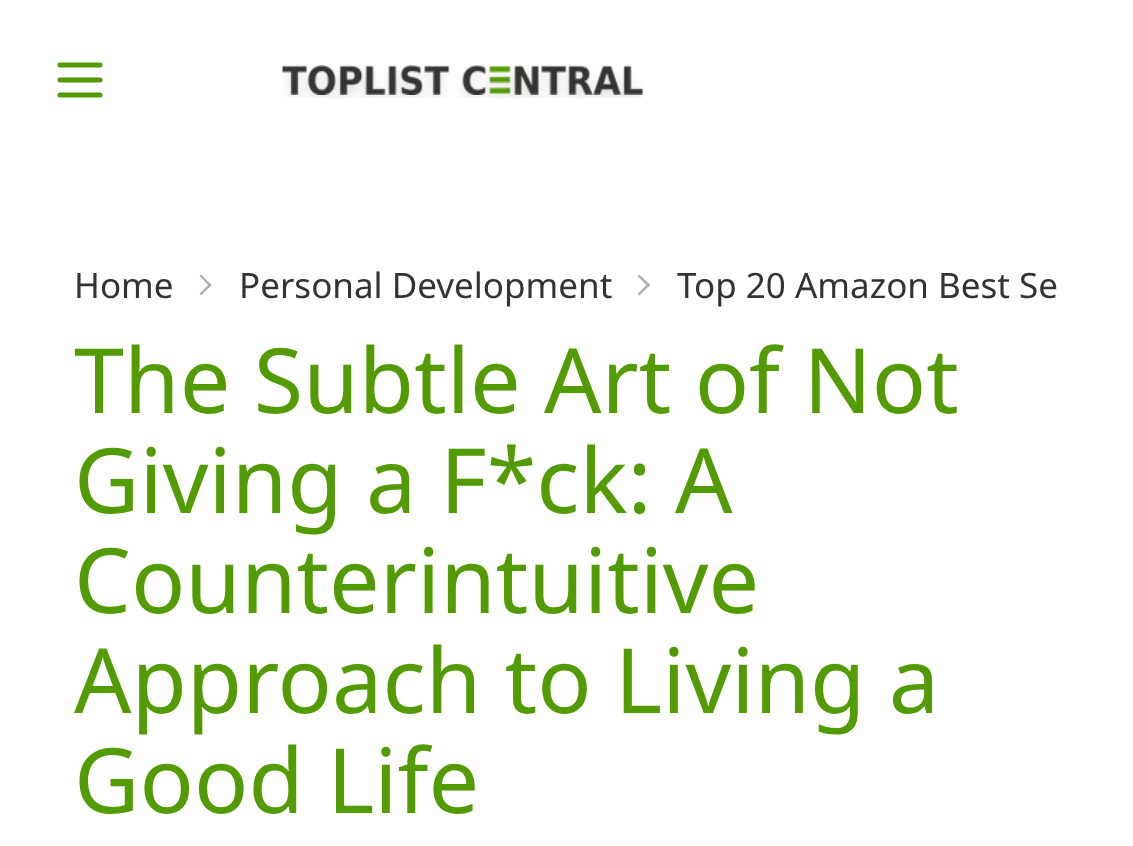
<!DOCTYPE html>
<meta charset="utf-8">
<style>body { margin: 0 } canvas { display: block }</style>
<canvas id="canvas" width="1133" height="846"></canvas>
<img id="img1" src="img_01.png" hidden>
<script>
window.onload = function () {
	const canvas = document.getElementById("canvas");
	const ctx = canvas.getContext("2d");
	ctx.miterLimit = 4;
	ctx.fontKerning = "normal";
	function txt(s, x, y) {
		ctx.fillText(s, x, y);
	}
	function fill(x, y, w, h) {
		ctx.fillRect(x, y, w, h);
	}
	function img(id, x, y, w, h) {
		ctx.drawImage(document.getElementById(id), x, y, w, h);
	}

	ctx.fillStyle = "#FFFFFF";
	fill(0, 0, 1133, 846);
	ctx.beginPath();
	ctx.moveTo(60, 65);
	ctx.lineTo(100, 65);
	ctx.moveTo(60, 80);
	ctx.lineTo(100, 80);
	ctx.moveTo(60, 95);
	ctx.lineTo(100, 95);
	ctx.strokeStyle = "#529B03";
	ctx.lineWidth = 5;
	ctx.lineCap = "round";
	ctx.lineJoin = "round";
	ctx.stroke();
	img("img1", 282, 65, 361, 33);
	ctx.fillStyle = "#ADADAD";
	ctx.beginPath();
	ctx.moveTo(201, 274.5);
	ctx.lineTo(211.5, 285);
	ctx.lineTo(210, 287);
	ctx.lineTo(199.5, 276);
	ctx.closePath();
	ctx.fill();
	ctx.beginPath();
	ctx.moveTo(210, 283);
	ctx.lineTo(211.5, 285);
	ctx.lineTo(201, 295.5);
	ctx.lineTo(199.5, 294);
	ctx.closePath();
	ctx.fill();
	ctx.beginPath();
	ctx.moveTo(639.5, 274.5);
	ctx.lineTo(650, 285);
	ctx.lineTo(648.5, 287);
	ctx.lineTo(637.5, 276);
	ctx.closePath();
	ctx.fill();
	ctx.beginPath();
	ctx.moveTo(648.5, 283);
	ctx.lineTo(650, 285);
	ctx.lineTo(639.5, 295.5);
	ctx.lineTo(637.5, 294);
	ctx.closePath();
	ctx.fill();
	ctx.font = "35px Noto Sans";
	ctx.fillStyle = "#333333";
	txt("Home", 74, 298);
	txt("Personal Development", 239, 298);
	txt("Top 20 Amazon Best Se", 677, 298);
	ctx.font = "90px Noto Sans";
	ctx.fillStyle = "#529B03";
	txt("The Subtle Art of Not", 74, 413);
	txt("Giving a F*ck: A", 74, 513);
	txt("Counterintuitive", 74, 613);
	txt("Approach to Living a", 74, 713);
	txt("Good Life", 74, 813);
};
</script>
